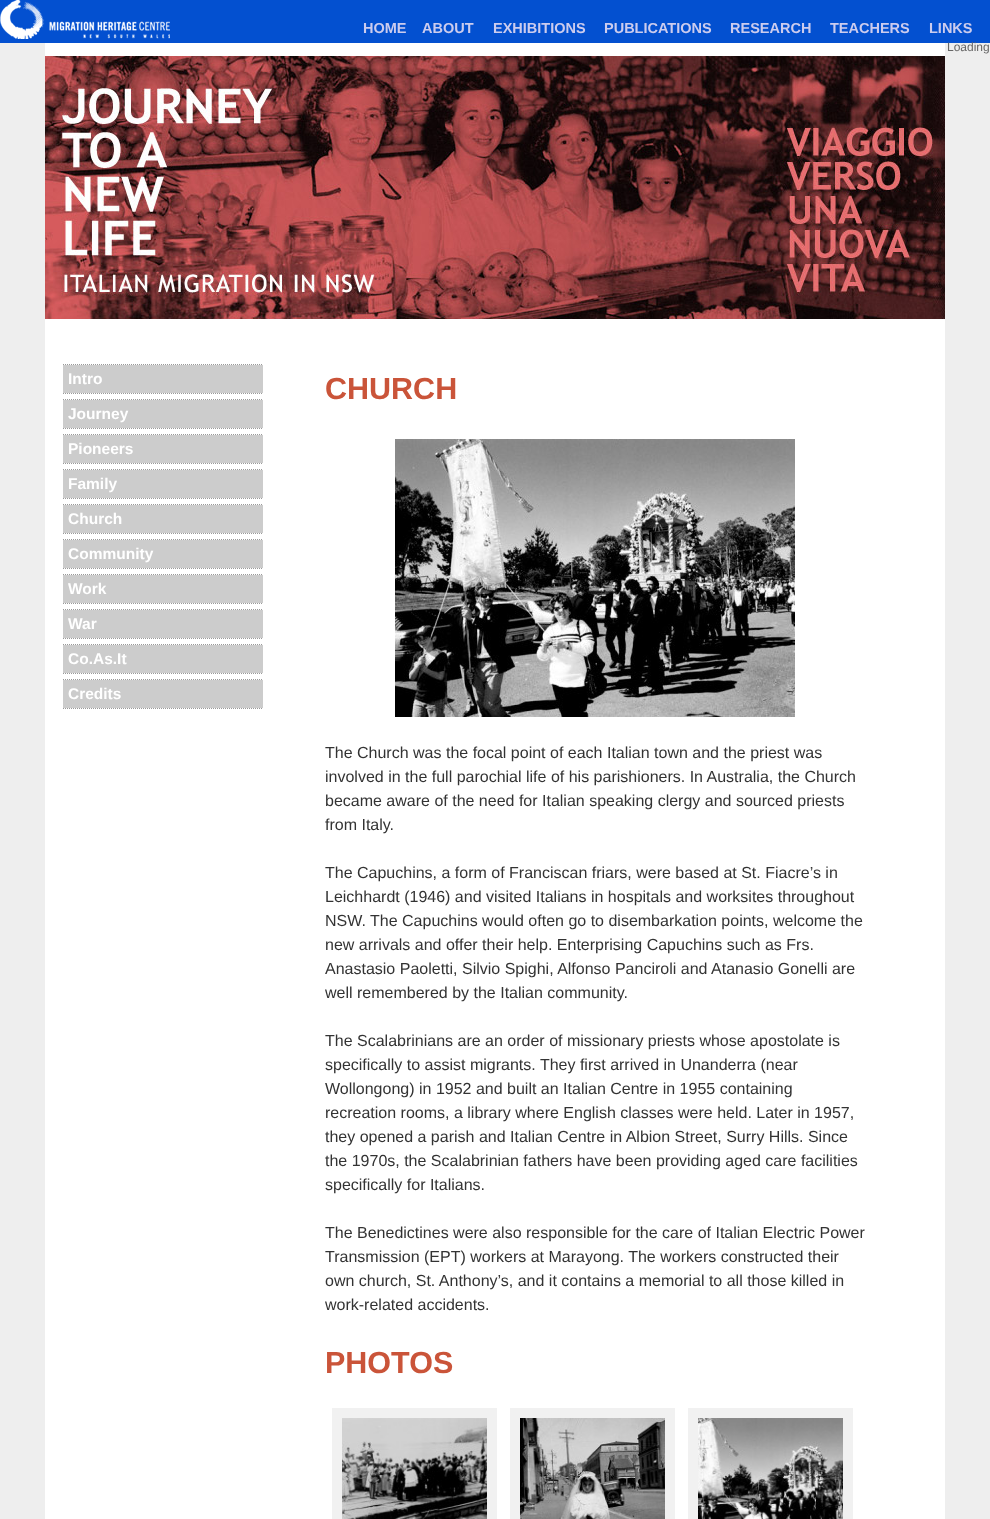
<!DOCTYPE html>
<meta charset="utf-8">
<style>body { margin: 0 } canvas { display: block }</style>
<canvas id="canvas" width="990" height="1519"></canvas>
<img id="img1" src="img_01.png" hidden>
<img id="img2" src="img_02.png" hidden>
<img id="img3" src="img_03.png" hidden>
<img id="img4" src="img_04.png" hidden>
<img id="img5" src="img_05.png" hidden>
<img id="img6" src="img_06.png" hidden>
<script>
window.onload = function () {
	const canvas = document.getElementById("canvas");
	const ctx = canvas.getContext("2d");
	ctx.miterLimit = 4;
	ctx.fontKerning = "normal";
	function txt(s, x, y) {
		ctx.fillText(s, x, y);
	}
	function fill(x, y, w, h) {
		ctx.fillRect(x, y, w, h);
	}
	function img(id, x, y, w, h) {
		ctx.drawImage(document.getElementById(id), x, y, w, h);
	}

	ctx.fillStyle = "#EEEEEE";
	fill(0, 0, 990, 1519);
	ctx.fillStyle = "#0350D0";
	fill(0, 0, 990, 43);
	img("img1", 0, 0, 170, 39);
	ctx.fillStyle = "#FFFFFF";
	fill(45, 43, 900, 1476);
	img("img2", 45, 56, 900, 263);
	ctx.beginPath();
	ctx.moveTo(63, 364.5);
	ctx.lineTo(263, 364.5);
	ctx.strokeStyle = "#999999";
	ctx.setLineDash([1, 1]);
	ctx.stroke();
	ctx.beginPath();
	ctx.moveTo(63, 393.5);
	ctx.lineTo(263, 393.5);
	ctx.stroke();
	ctx.fillStyle = "#CCCCCC";
	fill(63, 365, 200, 28);
	ctx.beginPath();
	ctx.moveTo(63, 399.5);
	ctx.lineTo(263, 399.5);
	ctx.stroke();
	ctx.beginPath();
	ctx.moveTo(63, 428.5);
	ctx.lineTo(263, 428.5);
	ctx.stroke();
	fill(63, 400, 200, 28);
	ctx.beginPath();
	ctx.moveTo(63, 434.5);
	ctx.lineTo(263, 434.5);
	ctx.stroke();
	ctx.beginPath();
	ctx.moveTo(63, 463.5);
	ctx.lineTo(263, 463.5);
	ctx.stroke();
	fill(63, 435, 200, 28);
	ctx.beginPath();
	ctx.moveTo(63, 469.5);
	ctx.lineTo(263, 469.5);
	ctx.stroke();
	ctx.beginPath();
	ctx.moveTo(63, 498.5);
	ctx.lineTo(263, 498.5);
	ctx.stroke();
	fill(63, 470, 200, 28);
	ctx.beginPath();
	ctx.moveTo(63, 504.5);
	ctx.lineTo(263, 504.5);
	ctx.stroke();
	ctx.beginPath();
	ctx.moveTo(63, 533.5);
	ctx.lineTo(263, 533.5);
	ctx.stroke();
	fill(63, 505, 200, 28);
	ctx.beginPath();
	ctx.moveTo(63, 539.5);
	ctx.lineTo(263, 539.5);
	ctx.stroke();
	ctx.beginPath();
	ctx.moveTo(63, 568.5);
	ctx.lineTo(263, 568.5);
	ctx.stroke();
	fill(63, 540, 200, 28);
	ctx.beginPath();
	ctx.moveTo(63, 574.5);
	ctx.lineTo(263, 574.5);
	ctx.stroke();
	ctx.beginPath();
	ctx.moveTo(63, 603.5);
	ctx.lineTo(263, 603.5);
	ctx.stroke();
	fill(63, 575, 200, 28);
	ctx.beginPath();
	ctx.moveTo(63, 609.5);
	ctx.lineTo(263, 609.5);
	ctx.stroke();
	ctx.beginPath();
	ctx.moveTo(63, 638.5);
	ctx.lineTo(263, 638.5);
	ctx.stroke();
	fill(63, 610, 200, 28);
	ctx.beginPath();
	ctx.moveTo(63, 644.5);
	ctx.lineTo(263, 644.5);
	ctx.stroke();
	ctx.beginPath();
	ctx.moveTo(63, 673.5);
	ctx.lineTo(263, 673.5);
	ctx.stroke();
	fill(63, 645, 200, 28);
	ctx.beginPath();
	ctx.moveTo(63, 679.5);
	ctx.lineTo(263, 679.5);
	ctx.stroke();
	ctx.beginPath();
	ctx.moveTo(63, 708.5);
	ctx.lineTo(263, 708.5);
	ctx.stroke();
	fill(63, 680, 200, 28);
	img("img3", 395, 439, 400, 278);
	ctx.strokeStyle = "#F1F1F1";
	ctx.lineWidth = 10;
	ctx.setLineDash([]);
	ctx.strokeRect(337, 1413, 155, 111);
	img("img4", 342, 1418, 145, 101);
	ctx.strokeRect(515, 1413, 155, 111);
	img("img5", 520, 1418, 145, 101);
	ctx.strokeRect(693, 1413, 155, 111);
	img("img6", 698, 1418, 145, 101);
	ctx.font = "bold 14.5px Liberation Sans";
	ctx.fillStyle = "#CCCCEE";
	txt("HOME", 363, 33);
	txt("ABOUT", 422, 33);
	txt("EXHIBITIONS", 493, 33);
	txt("PUBLICATIONS", 604, 33);
	txt("RESEARCH", 730, 33);
	txt("TEACHERS", 830, 33);
	txt("LINKS", 929, 33);
	ctx.font = "12px Liberation Sans";
	ctx.fillStyle = "#666666";
	txt("Loading", 947, 51);
	ctx.font = "bold 15.5px Liberation Sans";
	ctx.fillStyle = "#FFFFFF";
	txt("Intro", 68, 384);
	txt("Journey", 68, 419);
	txt("Pioneers", 68, 454);
	txt("Family", 68, 489);
	txt("Church", 68, 524);
	txt("Community", 68, 559);
	txt("Work", 68, 594);
	txt("War", 68, 629);
	txt("Co.As.It", 68, 664);
	txt("Credits", 68, 699);
	ctx.font = "bold 30.5px Liberation Sans";
	ctx.fillStyle = "#CA5439";
	txt("CHURCH", 325, 399);
	ctx.font = "16px Liberation Sans";
	ctx.fillStyle = "#333333";
	txt("The Church was the focal point of each Italian town and the priest was", 325, 758);
	txt("involved in the full parochial life of his parishioners. In Australia, the Church", 325, 782);
	txt("became aware of the need for Italian speaking clergy and sourced priests", 325, 806);
	txt("from Italy.", 325, 830);
	txt("The Capuchins, a form of Franciscan friars, were based at St. Fiacre’s in", 325, 878);
	txt("Leichhardt (1946) and visited Italians in hospitals and worksites throughout", 325, 902);
	txt("NSW. The Capuchins would often go to disembarkation points, welcome the", 325, 926);
	txt("new arrivals and offer their help. Enterprising Capuchins such as Frs.", 325, 950);
	txt("Anastasio Paoletti, Silvio Spighi, Alfonso Panciroli and Atanasio Gonelli are", 325, 974);
	txt("well remembered by the Italian community.", 325, 998);
	txt("The Scalabrinians are an order of missionary priests whose apostolate is", 325, 1046);
	txt("specifically to assist migrants. They first arrived in Unanderra (near", 325, 1070);
	txt("Wollongong) in 1952 and built an Italian Centre in 1955 containing", 325, 1094);
	txt("recreation rooms, a library where English classes were held. Later in 1957,", 325, 1118);
	txt("they opened a parish and Italian Centre in Albion Street, Surry Hills. Since", 325, 1142);
	txt("the 1970s, the Scalabrinian fathers have been providing aged care facilities", 325, 1166);
	txt("specifically for Italians.", 325, 1190);
	txt("The Benedictines were also responsible for the care of Italian Electric Power", 325, 1238);
	txt("Transmission (EPT) workers at Marayong. The workers constructed their", 325, 1262);
	txt("own church, St. Anthony’s, and it contains a memorial to all those killed in", 325, 1286);
	txt("work-related accidents.", 325, 1310);
	ctx.font = "bold 30.5px Liberation Sans";
	ctx.fillStyle = "#CA5439";
	txt("PHOTOS", 325, 1373);
};
</script>
